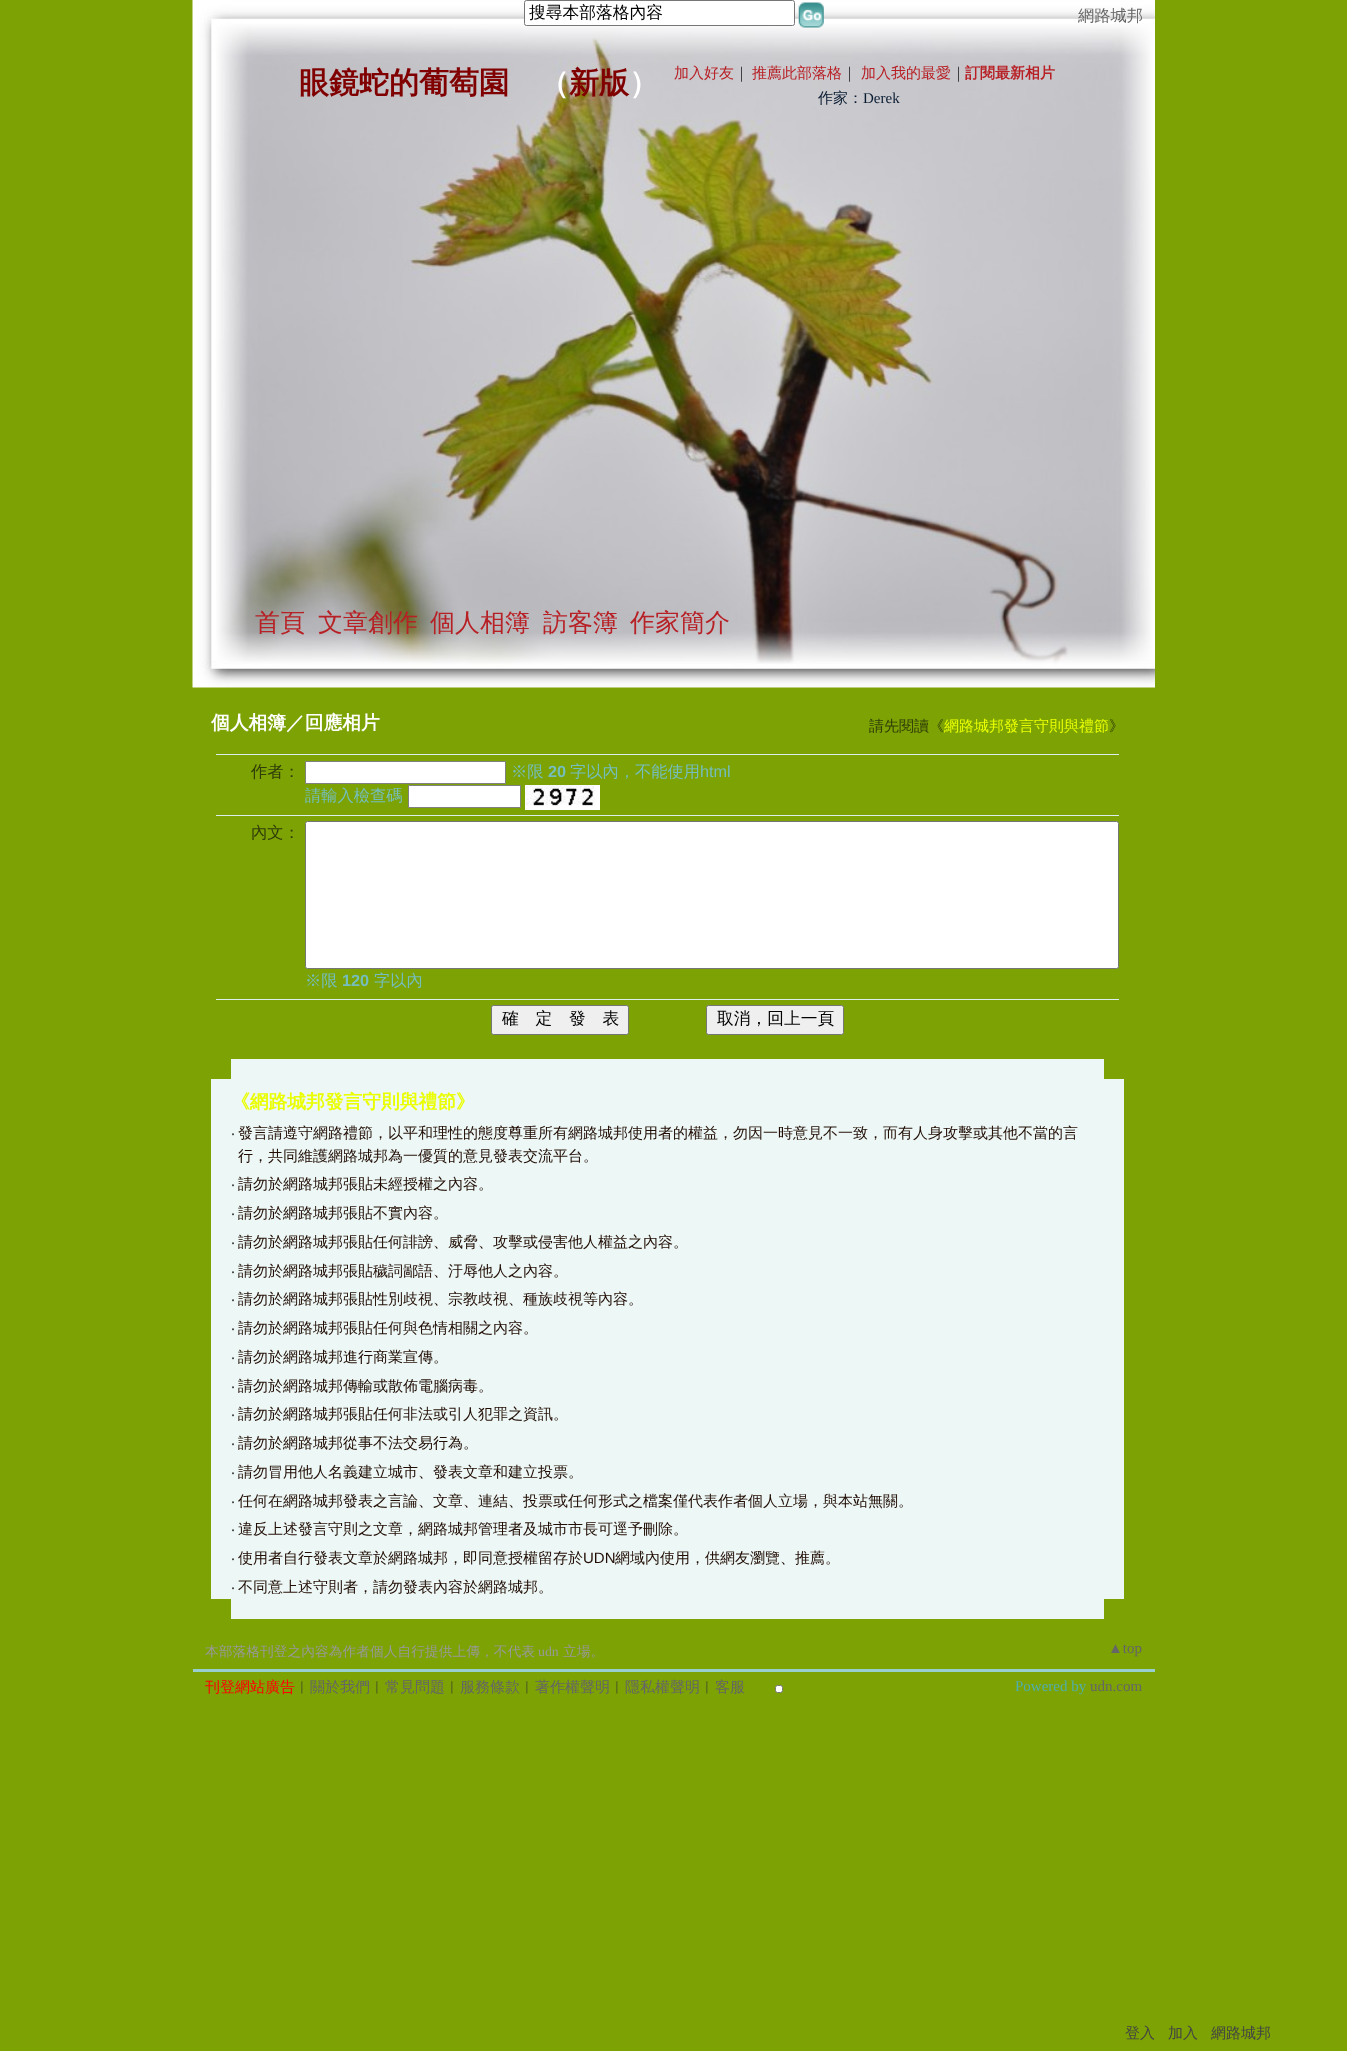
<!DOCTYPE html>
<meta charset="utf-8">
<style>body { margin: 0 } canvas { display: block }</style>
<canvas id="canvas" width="1347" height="2051"></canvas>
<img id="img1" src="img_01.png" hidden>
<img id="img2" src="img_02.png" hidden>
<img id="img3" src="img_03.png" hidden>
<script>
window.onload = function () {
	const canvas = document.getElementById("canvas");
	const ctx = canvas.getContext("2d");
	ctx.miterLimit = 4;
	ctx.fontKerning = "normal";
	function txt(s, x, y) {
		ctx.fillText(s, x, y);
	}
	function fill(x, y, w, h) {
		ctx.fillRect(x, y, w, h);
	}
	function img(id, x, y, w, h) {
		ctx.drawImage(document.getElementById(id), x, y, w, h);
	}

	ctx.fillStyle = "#7CA203";
	fill(0, 0, 1347, 2051);
	img("img1", 192, 0, 963, 688);
	ctx.fillStyle = "#FFFFFF";
	ctx.beginPath();
	ctx.roundRect(524.5, 0.5, 270, 25, 2);
	ctx.fill();
	ctx.strokeStyle = "#767676";
	ctx.stroke();
	img("img2", 798, 2, 26, 26);
	ctx.fillStyle = "#DBEFEF";
	fill(216, 754, 903, 1);
	ctx.fillStyle = "#FFFFFF";
	ctx.beginPath();
	ctx.rect(305.5, 761.5, 200, 22);
	ctx.fill();
	ctx.strokeStyle = "#808080";
	ctx.stroke();
	ctx.beginPath();
	ctx.rect(408.5, 785.5, 112, 22);
	ctx.fill();
	ctx.stroke();
	img("img3", 525, 785, 75, 25);
	ctx.fillStyle = "#DBEFEF";
	fill(216, 815, 903, 1);
	ctx.fillStyle = "#FFFFFF";
	ctx.beginPath();
	ctx.roundRect(305.5, 821.5, 813, 147, 2);
	ctx.fill();
	ctx.strokeStyle = "#767676";
	ctx.stroke();
	ctx.fillStyle = "#DBEFEF";
	fill(216, 999, 903, 1);
	ctx.fillStyle = "#EFEFEF";
	ctx.beginPath();
	ctx.roundRect(491.5, 1005.5, 137, 29, 2);
	ctx.fill();
	ctx.stroke();
	ctx.beginPath();
	ctx.roundRect(706.5, 1005.5, 137, 29, 2);
	ctx.fill();
	ctx.stroke();
	ctx.fillStyle = "#ECF7F6";
	fill(231, 1059, 873, 20);
	fill(211, 1079, 913, 520);
	fill(231, 1599, 873, 20);
	ctx.fillStyle = "#98CFCE";
	fill(193, 1669, 962, 3);
	ctx.fillStyle = "#FFFFFF";
	ctx.beginPath();
	ctx.roundRect(775.5, 1685.5, 7, 7, 2);
	ctx.fill();
	ctx.stroke();
	ctx.font = "500 16.75px WenQuanYi Zen Hei";
	ctx.fillStyle = "#000000";
	txt("搜尋本部落格內容", 529, 18);
	ctx.font = "bold 30px WenQuanYi Zen Hei";
	ctx.fillStyle = "#800000";
	txt("眼鏡蛇的葡萄園", 299, 93);
	ctx.fillStyle = "#FFFFFF";
	txt("（", 539, 93);
	ctx.fillStyle = "#800000";
	txt("新版", 569, 93);
	ctx.fillStyle = "#FFFFFF";
	txt("）", 629, 93);
	ctx.font = "500 15px WenQuanYi Zen Hei";
	ctx.fillStyle = "#B72025";
	txt("加入好友", 674, 78);
	ctx.fillStyle = "#333333";
	txt("｜", 734, 78);
	ctx.fillStyle = "#B72025";
	txt("推薦此部落格", 752, 78);
	ctx.fillStyle = "#333333";
	txt("｜", 842, 78);
	ctx.fillStyle = "#B72025";
	txt("加入我的最愛", 861, 78);
	ctx.fillStyle = "#333333";
	txt("｜", 951, 78);
	ctx.font = "bold 15px WenQuanYi Zen Hei";
	ctx.fillStyle = "#B72025";
	txt("訂閱最新相片", 965, 78);
	ctx.font = "500 15px WenQuanYi Zen Hei";
	ctx.fillStyle = "#091B31";
	txt("作家：", 818, 103);
	ctx.font = "15px Liberation Serif";
	txt("Derek", 863, 103);
	ctx.font = "500 25px WenQuanYi Zen Hei";
	ctx.fillStyle = "#B72025";
	txt("首頁", 255, 631);
	txt("文章創作", 318, 631);
	txt("個人相簿", 430, 631);
	txt("訪客簿", 543, 631);
	txt("作家簡介", 630, 631);
	ctx.font = "500 16.25px WenQuanYi Zen Hei";
	ctx.fillStyle = "#666666";
	txt("網路城邦", 1078, 21);
	ctx.font = "bold 18.75px WenQuanYi Zen Hei";
	ctx.fillStyle = "#FFFFFF";
	txt("個人相簿／回應相片", 211, 729);
	ctx.font = "500 15px WenQuanYi Zen Hei";
	ctx.fillStyle = "#303C0A";
	txt("請先閱讀《", 869, 731);
	ctx.fillStyle = "#EAFF00";
	txt("網路城邦發言守則與禮節", 944, 731);
	ctx.fillStyle = "#303C0A";
	txt("》", 1109, 731);
	ctx.font = "500 16.25px WenQuanYi Zen Hei";
	txt("作者：", 251, 777);
	ctx.fillStyle = "#75BEBD";
	txt("※限", 511, 777);
	ctx.font = "bold 16.25px Liberation Sans";
	txt("20", 548, 777);
	ctx.font = "500 16.25px WenQuanYi Zen Hei";
	txt("字以內，不能使用", 570, 777);
	ctx.font = "16.25px Liberation Sans";
	txt("html", 700, 777);
	ctx.font = "500 16.25px WenQuanYi Zen Hei";
	txt("請輸入檢查碼", 305, 801);
	ctx.fillStyle = "#303C0A";
	txt("內文：", 251, 838);
	ctx.fillStyle = "#75BEBD";
	txt("※限", 305, 986);
	ctx.font = "bold 16.25px Liberation Sans";
	txt("120", 342, 986);
	ctx.font = "500 16.25px WenQuanYi Zen Hei";
	txt("字以內", 374, 986);
	ctx.font = "500 16.75px WenQuanYi Zen Hei";
	ctx.fillStyle = "#000000";
	txt("確　定　發　表", 502, 1024);
	txt("取消，回上一頁", 717, 1024);
	ctx.font = "bold 18.75px WenQuanYi Zen Hei";
	ctx.fillStyle = "#EAFF00";
	txt("《網路城邦發言守則與禮節》", 231, 1108);
	ctx.font = "15px Noto Sans";
	ctx.fillStyle = "#333333";
	txt("‧", 231, 1138);
	ctx.font = "500 15px WenQuanYi Zen Hei";
	ctx.fillStyle = "#210D04";
	txt("發言請遵守網路禮節，以平和理性的態度尊重所有網路城邦使用者的權益，勿因一時意見不一致，而有人身攻擊或其他不當的言", 238, 1138);
	txt("行，共同維護網路城邦為一優質的意見發表交流平台。", 238, 1161);
	ctx.font = "15px Noto Sans";
	ctx.fillStyle = "#333333";
	txt("‧", 231, 1189);
	ctx.font = "500 15px WenQuanYi Zen Hei";
	ctx.fillStyle = "#210D04";
	txt("請勿於網路城邦張貼未經授權之內容。", 238, 1189);
	ctx.font = "15px Noto Sans";
	ctx.fillStyle = "#333333";
	txt("‧", 231, 1218);
	ctx.font = "500 15px WenQuanYi Zen Hei";
	ctx.fillStyle = "#210D04";
	txt("請勿於網路城邦張貼不實內容。", 238, 1218);
	ctx.font = "15px Noto Sans";
	ctx.fillStyle = "#333333";
	txt("‧", 231, 1247);
	ctx.font = "500 15px WenQuanYi Zen Hei";
	ctx.fillStyle = "#210D04";
	txt("請勿於網路城邦張貼任何誹謗、威脅、攻擊或侵害他人權益之內容。", 238, 1247);
	ctx.font = "15px Noto Sans";
	ctx.fillStyle = "#333333";
	txt("‧", 231, 1276);
	ctx.font = "500 15px WenQuanYi Zen Hei";
	ctx.fillStyle = "#210D04";
	txt("請勿於網路城邦張貼穢詞鄙語、汙辱他人之內容。", 238, 1276);
	ctx.font = "15px Noto Sans";
	ctx.fillStyle = "#333333";
	txt("‧", 231, 1304);
	ctx.font = "500 15px WenQuanYi Zen Hei";
	ctx.fillStyle = "#210D04";
	txt("請勿於網路城邦張貼性別歧視、宗教歧視、種族歧視等內容。", 238, 1304);
	ctx.font = "15px Noto Sans";
	ctx.fillStyle = "#333333";
	txt("‧", 231, 1333);
	ctx.font = "500 15px WenQuanYi Zen Hei";
	ctx.fillStyle = "#210D04";
	txt("請勿於網路城邦張貼任何與色情相關之內容。", 238, 1333);
	ctx.font = "15px Noto Sans";
	ctx.fillStyle = "#333333";
	txt("‧", 231, 1362);
	ctx.font = "500 15px WenQuanYi Zen Hei";
	ctx.fillStyle = "#210D04";
	txt("請勿於網路城邦進行商業宣傳。", 238, 1362);
	ctx.font = "15px Noto Sans";
	ctx.fillStyle = "#333333";
	txt("‧", 231, 1391);
	ctx.font = "500 15px WenQuanYi Zen Hei";
	ctx.fillStyle = "#210D04";
	txt("請勿於網路城邦傳輸或散佈電腦病毒。", 238, 1391);
	ctx.font = "15px Noto Sans";
	ctx.fillStyle = "#333333";
	txt("‧", 231, 1419);
	ctx.font = "500 15px WenQuanYi Zen Hei";
	ctx.fillStyle = "#210D04";
	txt("請勿於網路城邦張貼任何非法或引人犯罪之資訊。", 238, 1419);
	ctx.font = "15px Noto Sans";
	ctx.fillStyle = "#333333";
	txt("‧", 231, 1448);
	ctx.font = "500 15px WenQuanYi Zen Hei";
	ctx.fillStyle = "#210D04";
	txt("請勿於網路城邦從事不法交易行為。", 238, 1448);
	ctx.font = "15px Noto Sans";
	ctx.fillStyle = "#333333";
	txt("‧", 231, 1477);
	ctx.font = "500 15px WenQuanYi Zen Hei";
	ctx.fillStyle = "#210D04";
	txt("請勿冒用他人名義建立城市、發表文章和建立投票。", 238, 1477);
	ctx.font = "15px Noto Sans";
	ctx.fillStyle = "#333333";
	txt("‧", 231, 1506);
	ctx.font = "500 15px WenQuanYi Zen Hei";
	ctx.fillStyle = "#210D04";
	txt("任何在網路城邦發表之言論、文章、連結、投票或任何形式之檔案僅代表作者個人立場，與本站無關。", 238, 1506);
	ctx.font = "15px Noto Sans";
	ctx.fillStyle = "#333333";
	txt("‧", 231, 1534);
	ctx.font = "500 15px WenQuanYi Zen Hei";
	ctx.fillStyle = "#210D04";
	txt("違反上述發言守則之文章，網路城邦管理者及城市市長可逕予刪除。", 238, 1534);
	ctx.font = "15px Noto Sans";
	ctx.fillStyle = "#333333";
	txt("‧", 231, 1563);
	ctx.font = "500 15px WenQuanYi Zen Hei";
	ctx.fillStyle = "#210D04";
	txt("使用者自行發表文章於網路城邦，即同意授權留存於", 238, 1563);
	ctx.font = "15px Liberation Sans";
	txt("UDN", 583, 1563);
	ctx.font = "500 15px WenQuanYi Zen Hei";
	txt("網域內使用，供網友瀏覽、推薦。", 615, 1563);
	ctx.font = "15px Noto Sans";
	ctx.fillStyle = "#333333";
	txt("‧", 231, 1592);
	ctx.font = "500 15px WenQuanYi Zen Hei";
	ctx.fillStyle = "#210D04";
	txt("不同意上述守則者，請勿發表內容於網路城邦。", 238, 1592);
	ctx.font = "500 13.75px WenQuanYi Zen Hei";
	ctx.fillStyle = "#999999";
	txt("本部落格刊登之內容為作者個人自行提供上傳，不代表", 205, 1656);
	ctx.font = "13.75px Liberation Serif";
	txt("udn", 538, 1656);
	ctx.font = "500 13.75px WenQuanYi Zen Hei";
	txt("立場。", 563, 1656);
	ctx.font = "15px Liberation Serif";
	ctx.fillStyle = "#666666";
	txt("▲top", 1108, 1653);
	ctx.font = "500 15px WenQuanYi Zen Hei";
	ctx.fillStyle = "#FF0000";
	txt("刊登網站廣告", 205, 1692);
	ctx.fillStyle = "#333333";
	txt("︱", 295, 1692);
	ctx.fillStyle = "#666666";
	txt("關於我們", 310, 1692);
	ctx.fillStyle = "#333333";
	txt("︱", 370, 1692);
	ctx.fillStyle = "#666666";
	txt("常見問題", 385, 1692);
	ctx.fillStyle = "#333333";
	txt("︱", 445, 1692);
	ctx.fillStyle = "#666666";
	txt("服務條款", 460, 1692);
	ctx.fillStyle = "#333333";
	txt("︱", 520, 1692);
	ctx.fillStyle = "#666666";
	txt("著作權聲明", 535, 1692);
	ctx.fillStyle = "#333333";
	txt("︱", 610, 1692);
	ctx.fillStyle = "#666666";
	txt("隱私權聲明", 625, 1692);
	ctx.fillStyle = "#333333";
	txt("︱", 700, 1692);
	ctx.fillStyle = "#666666";
	txt("客服", 715, 1692);
	ctx.font = "15px Liberation Serif";
	ctx.fillStyle = "#52AEAD";
	txt("Powered by", 1015, 1691);
	ctx.fillStyle = "#666666";
	txt("udn.com", 1090, 1691);
	ctx.font = "500 15px WenQuanYi Zen Hei";
	ctx.fillStyle = "#444444";
	txt("登入", 1125, 2038);
	txt("加入", 1168, 2038);
	txt("網路城邦", 1211, 2038);
};
</script>
